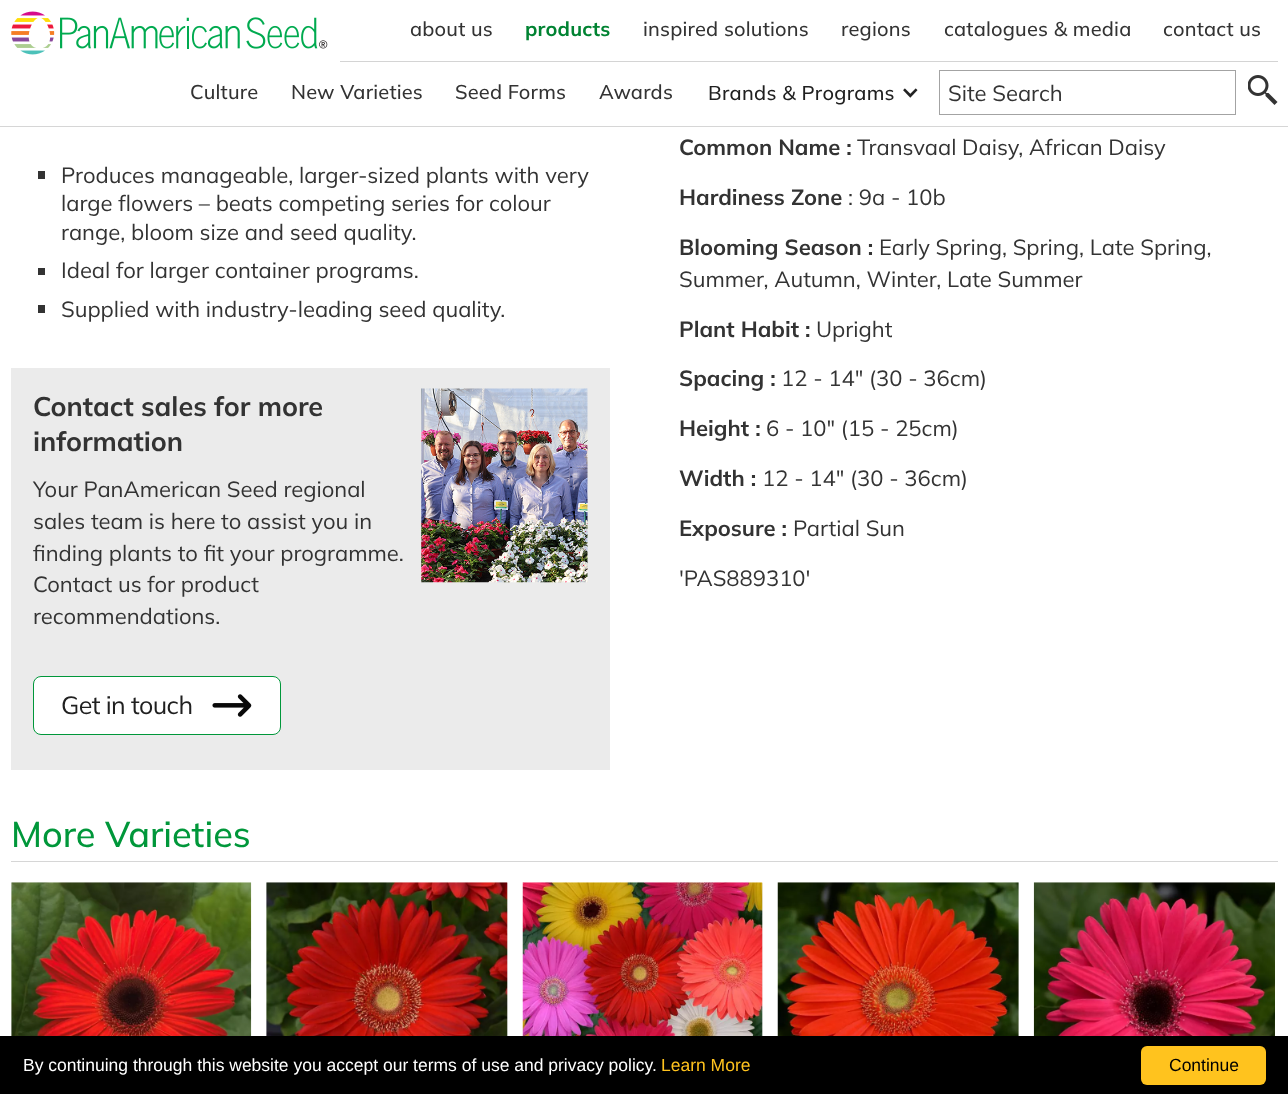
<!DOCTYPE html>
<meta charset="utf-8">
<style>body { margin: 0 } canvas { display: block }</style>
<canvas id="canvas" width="1288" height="1094"></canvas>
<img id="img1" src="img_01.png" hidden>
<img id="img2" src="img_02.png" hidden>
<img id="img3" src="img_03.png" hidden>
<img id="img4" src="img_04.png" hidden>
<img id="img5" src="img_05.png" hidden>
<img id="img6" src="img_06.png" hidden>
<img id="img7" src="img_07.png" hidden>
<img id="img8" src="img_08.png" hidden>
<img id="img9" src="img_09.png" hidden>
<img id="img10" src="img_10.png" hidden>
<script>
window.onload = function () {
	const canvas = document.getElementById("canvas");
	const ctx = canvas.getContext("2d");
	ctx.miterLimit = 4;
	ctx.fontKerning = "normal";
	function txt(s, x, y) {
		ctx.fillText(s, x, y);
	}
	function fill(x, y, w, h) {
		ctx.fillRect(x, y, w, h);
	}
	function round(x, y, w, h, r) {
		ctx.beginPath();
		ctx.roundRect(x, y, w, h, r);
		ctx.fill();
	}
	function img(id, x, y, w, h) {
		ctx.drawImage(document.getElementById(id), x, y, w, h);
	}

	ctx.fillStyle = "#FFFFFF";
	fill(0, 0, 1288, 1094);
	ctx.fillStyle = "#D6D6D6";
	fill(0, 126, 1288, 1);
	img("img1", 11, 11, 317, 44);
	ctx.fillStyle = "#D4D4D4";
	fill(340, 61, 938, 1);
	img("img2", 903, 88, 15, 10);
	ctx.strokeStyle = "#A3A3A3";
	ctx.strokeRect(939.5, 70.5, 296, 44);
	img("img3", 1248, 75, 30, 30);
	ctx.fillStyle = "#333333";
	fill(38, 171, 7, 8);
	fill(38, 268, 7, 7);
	fill(38, 305, 7, 8);
	ctx.fillStyle = "#EBEBEB";
	fill(11, 368, 599, 402);
	ctx.fillStyle = "#FFFFFF";
	ctx.beginPath();
	ctx.roundRect(33.5, 676.5, 247, 58, 7.5);
	ctx.fill();
	ctx.strokeStyle = "#00973A";
	ctx.stroke();
	img("img4", 212, 694, 40, 23);
	img("img5", 421, 388, 167, 195);
	ctx.fillStyle = "#D6D6D6";
	fill(11, 861, 1267, 1);
	ctx.fillStyle = "#EEEEEE";
	fill(11, 883, 1, 153);
	img("img6", 11, 882, 241, 154);
	fill(266, 883, 242, 153);
	img("img7", 266, 882, 242, 154);
	fill(762, 883, 1, 153);
	img("img8", 522, 882, 241, 154);
	fill(1018, 883, 1, 153);
	img("img9", 777, 882, 242, 154);
	img("img10", 1033, 882, 242, 154);
	ctx.fillStyle = "#000000";
	fill(0, 1036, 1288, 58);
	ctx.fillStyle = "#FFC31E";
	round(1141, 1046, 125, 39, 6);
	ctx.letterSpacing = "0.2px";
	ctx.font = "500 20px Mulish";
	ctx.fillStyle = "#333333";
	txt("about us", 410, 36);
	ctx.font = "bold 20px Mulish";
	ctx.fillStyle = "#008332";
	txt("products", 525, 36);
	ctx.font = "500 20px Mulish";
	ctx.fillStyle = "#333333";
	txt("inspired solutions", 643, 36);
	txt("regions", 841, 36);
	txt("catalogues & media", 944, 36);
	txt("contact us", 1163, 36);
	txt("Culture", 190, 99);
	txt("New Varieties", 291, 99);
	txt("Seed Forms", 455, 99);
	txt("Awards", 599, 99);
	ctx.letterSpacing = "0.3px";
	ctx.fillStyle = "#202020";
	txt("Brands & Programs", 708, 100);
	ctx.letterSpacing = "0px";
	ctx.font = "22px Mulish";
	ctx.fillStyle = "#333333";
	txt("Site Search", 948, 101);
	txt("Produces manageable, larger-sized plants with very", 61, 183);
	txt("large flowers – beats competing series for colour", 61, 211);
	txt("range, bloom size and seed quality.", 61, 240);
	txt("Ideal for larger container programs.", 61, 278);
	txt("Supplied with industry-leading seed quality.", 61, 317);
	ctx.font = "bold 27px Mulish";
	txt("Contact sales for more", 33, 416);
	txt("information", 33, 451);
	ctx.font = "22px Mulish";
	txt("Your PanAmerican Seed regional", 33, 497);
	txt("sales team is here to assist you in", 33, 529);
	txt("finding plants to fit your programme.", 33, 561);
	txt("Contact us for product", 33, 592);
	txt("recommendations.", 33, 624);
	ctx.letterSpacing = "-0.6px";
	ctx.font = "25px Mulish";
	ctx.fillStyle = "#202020";
	txt("Get in touch", 61, 714);
	ctx.letterSpacing = "0px";
	ctx.font = "bold 22px Mulish";
	ctx.fillStyle = "#333333";
	txt("Common Name :", 679, 155);
	ctx.font = "22px Mulish";
	txt("Transvaal Daisy, African Daisy", 857, 155);
	ctx.font = "bold 22px Mulish";
	txt("Hardiness Zone", 679, 205);
	ctx.font = "22px Mulish";
	txt(": 9a - 10b", 848, 205);
	ctx.font = "bold 22px Mulish";
	txt("Blooming Season :", 679, 255);
	ctx.font = "22px Mulish";
	txt("Early Spring, Spring, Late Spring,", 879, 255);
	txt("Summer, Autumn, Winter, Late Summer", 679, 287);
	ctx.font = "bold 22px Mulish";
	txt("Plant Habit :", 679, 337);
	ctx.font = "22px Mulish";
	txt("Upright", 816, 337);
	ctx.font = "bold 22px Mulish";
	txt("Spacing :", 679, 386);
	ctx.font = "22px Mulish";
	txt("12 - 14\" (30 - 36cm)", 781, 386);
	ctx.font = "bold 22px Mulish";
	txt("Height :", 679, 436);
	ctx.font = "22px Mulish";
	txt("6 - 10\" (15 - 25cm)", 766, 436);
	ctx.font = "bold 22px Mulish";
	txt("Width :", 679, 486);
	ctx.font = "22px Mulish";
	txt("12 - 14\" (30 - 36cm)", 762, 486);
	ctx.font = "bold 22px Mulish";
	txt("Exposure :", 679, 536);
	ctx.font = "22px Mulish";
	txt("Partial Sun", 793, 536);
	txt("'PAS889310'", 679, 586);
	ctx.font = "500 36px Mulish";
	ctx.fillStyle = "#00973A";
	txt("More Varieties", 11, 847);
	ctx.font = "17.5px Liberation Sans";
	ctx.fillStyle = "#FFFFFF";
	txt("By continuing through this website you accept our terms of use and privacy policy.", 23, 1071);
	ctx.fillStyle = "#FFC31E";
	txt("Learn More", 661, 1071);
	ctx.fillStyle = "#000000";
	txt("Continue", 1169, 1071);
};
</script>
